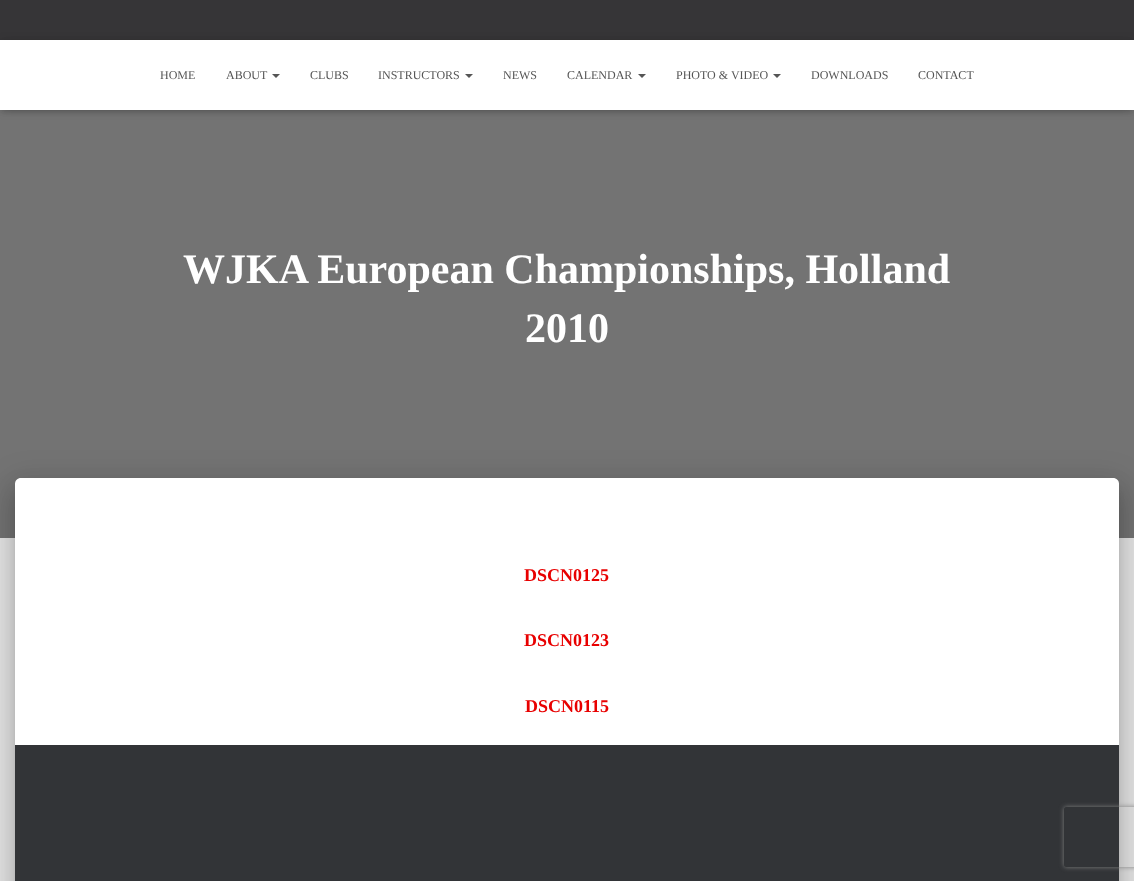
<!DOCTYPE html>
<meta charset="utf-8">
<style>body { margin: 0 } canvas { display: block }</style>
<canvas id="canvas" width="1134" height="881"></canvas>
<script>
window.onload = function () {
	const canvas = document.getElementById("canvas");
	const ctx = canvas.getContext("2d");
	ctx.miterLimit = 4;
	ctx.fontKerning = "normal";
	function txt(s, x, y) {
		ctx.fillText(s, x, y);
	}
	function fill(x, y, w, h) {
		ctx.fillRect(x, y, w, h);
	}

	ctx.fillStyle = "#E5E5E5";
	fill(0, 0, 1134, 881);
	ctx.fillStyle = "#363537";
	fill(0, 0, 1134, 40);
	ctx.fillStyle = "#737373";
	fill(0, 110, 1134, 428);
	ctx.fillStyle = "rgba(0, 0, 0, 0.1)";
	ctx.filter = "blur(2.5px)";
	ctx.beginPath();
	ctx.rect(2, 46, 1130, 66);
	ctx.fill();
	ctx.filter = "none";
	ctx.fillStyle = "rgba(0, 0, 0, 0.12)";
	ctx.filter = "blur(5px)";
	ctx.beginPath();
	ctx.rect(0, 41, 1134, 70);
	ctx.fill();
	ctx.filter = "none";
	ctx.fillStyle = "rgba(0, 0, 0, 0.42)";
	ctx.filter = "blur(5px)";
	ctx.beginPath();
	ctx.rect(6, 47, 1122, 58);
	ctx.fill();
	ctx.filter = "none";
	ctx.fillStyle = "#FFFFFF";
	fill(0, 40, 1134, 70);
	ctx.fillStyle = "#555555";
	ctx.beginPath();
	ctx.moveTo(272, 74);
	ctx.lineTo(280, 74);
	ctx.lineTo(276, 78);
	ctx.closePath();
	ctx.fill();
	ctx.beginPath();
	ctx.moveTo(465, 74);
	ctx.lineTo(473, 74);
	ctx.lineTo(469, 78);
	ctx.closePath();
	ctx.fill();
	ctx.beginPath();
	ctx.moveTo(638, 74);
	ctx.lineTo(646, 74);
	ctx.lineTo(642, 78);
	ctx.closePath();
	ctx.fill();
	ctx.beginPath();
	ctx.moveTo(773, 74);
	ctx.lineTo(781, 74);
	ctx.lineTo(777, 78);
	ctx.closePath();
	ctx.fill();
	ctx.fillStyle = "rgba(0, 0, 0, 0.2)";
	ctx.filter = "blur(5px)";
	ctx.beginPath();
	ctx.roundRect(20, 491, 1094, 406, 1);
	ctx.fill();
	ctx.filter = "none";
	ctx.fillStyle = "rgba(0, 0, 0, 0.12)";
	ctx.filter = "blur(15px)";
	ctx.beginPath();
	ctx.roundRect(10, 479, 1114, 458, 11);
	ctx.fill();
	ctx.filter = "none";
	ctx.fillStyle = "rgba(0, 0, 0, 0.14)";
	ctx.filter = "blur(12px)";
	ctx.beginPath();
	ctx.roundRect(13, 492, 1108, 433, 8);
	ctx.fill();
	ctx.filter = "none";
	ctx.fillStyle = "#FFFFFF";
	ctx.beginPath();
	ctx.moveTo(21, 478);
	ctx.lineTo(1113, 478);
	ctx.bezierCurveTo(1116.5, 478, 1119, 480.5, 1119, 484);
	ctx.lineTo(1119, 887);
	ctx.lineTo(15, 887);
	ctx.lineTo(15, 484);
	ctx.bezierCurveTo(15, 480.5, 17.5, 478, 21, 478);
	ctx.closePath();
	ctx.fill();
	ctx.fillStyle = "#323437";
	fill(15, 745, 1104, 136);
	ctx.save();
	ctx.beginPath();
	ctx.moveTo(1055, 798);
	ctx.lineTo(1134, 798);
	ctx.lineTo(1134, 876);
	ctx.lineTo(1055, 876);
	ctx.closePath();
	ctx.moveTo(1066, 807);
	ctx.lineTo(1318, 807);
	ctx.bezierCurveTo(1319, 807, 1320, 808, 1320, 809);
	ctx.lineTo(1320, 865);
	ctx.bezierCurveTo(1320, 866, 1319, 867, 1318, 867);
	ctx.lineTo(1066, 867);
	ctx.bezierCurveTo(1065, 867, 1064, 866, 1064, 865);
	ctx.lineTo(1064, 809);
	ctx.bezierCurveTo(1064, 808, 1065, 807, 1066, 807);
	ctx.closePath();
	ctx.clip("evenodd");
	ctx.fillStyle = "#808080";
	ctx.filter = "blur(2.5px)";
	ctx.beginPath();
	ctx.roundRect(1064, 807, 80, 60, 2);
	ctx.fill();
	ctx.filter = "none";
	ctx.restore();
	ctx.font = "12px Liberation Serif";
	ctx.fillStyle = "#555555";
	txt("HOME", 160, 79);
	txt("ABOUT", 226, 79);
	txt("CLUBS", 310, 79);
	txt("INSTRUCTORS", 378, 79);
	txt("NEWS", 503, 79);
	txt("CALENDAR", 567, 79);
	txt("PHOTO & VIDEO", 676, 79);
	txt("DOWNLOADS", 811, 79);
	txt("CONTACT", 918, 79);
	ctx.font = "bold 42px Liberation Serif";
	ctx.fillStyle = "#FFFFFF";
	txt("WJKA European Championships, Holland", 183, 283);
	txt("2010", 525, 342);
	ctx.font = "bold 18px Liberation Serif";
	ctx.fillStyle = "#E80000";
	txt("DSCN0125", 524, 581);
	txt("DSCN0123", 524, 646);
	txt("DSCN0115", 525, 712);
};
</script>
